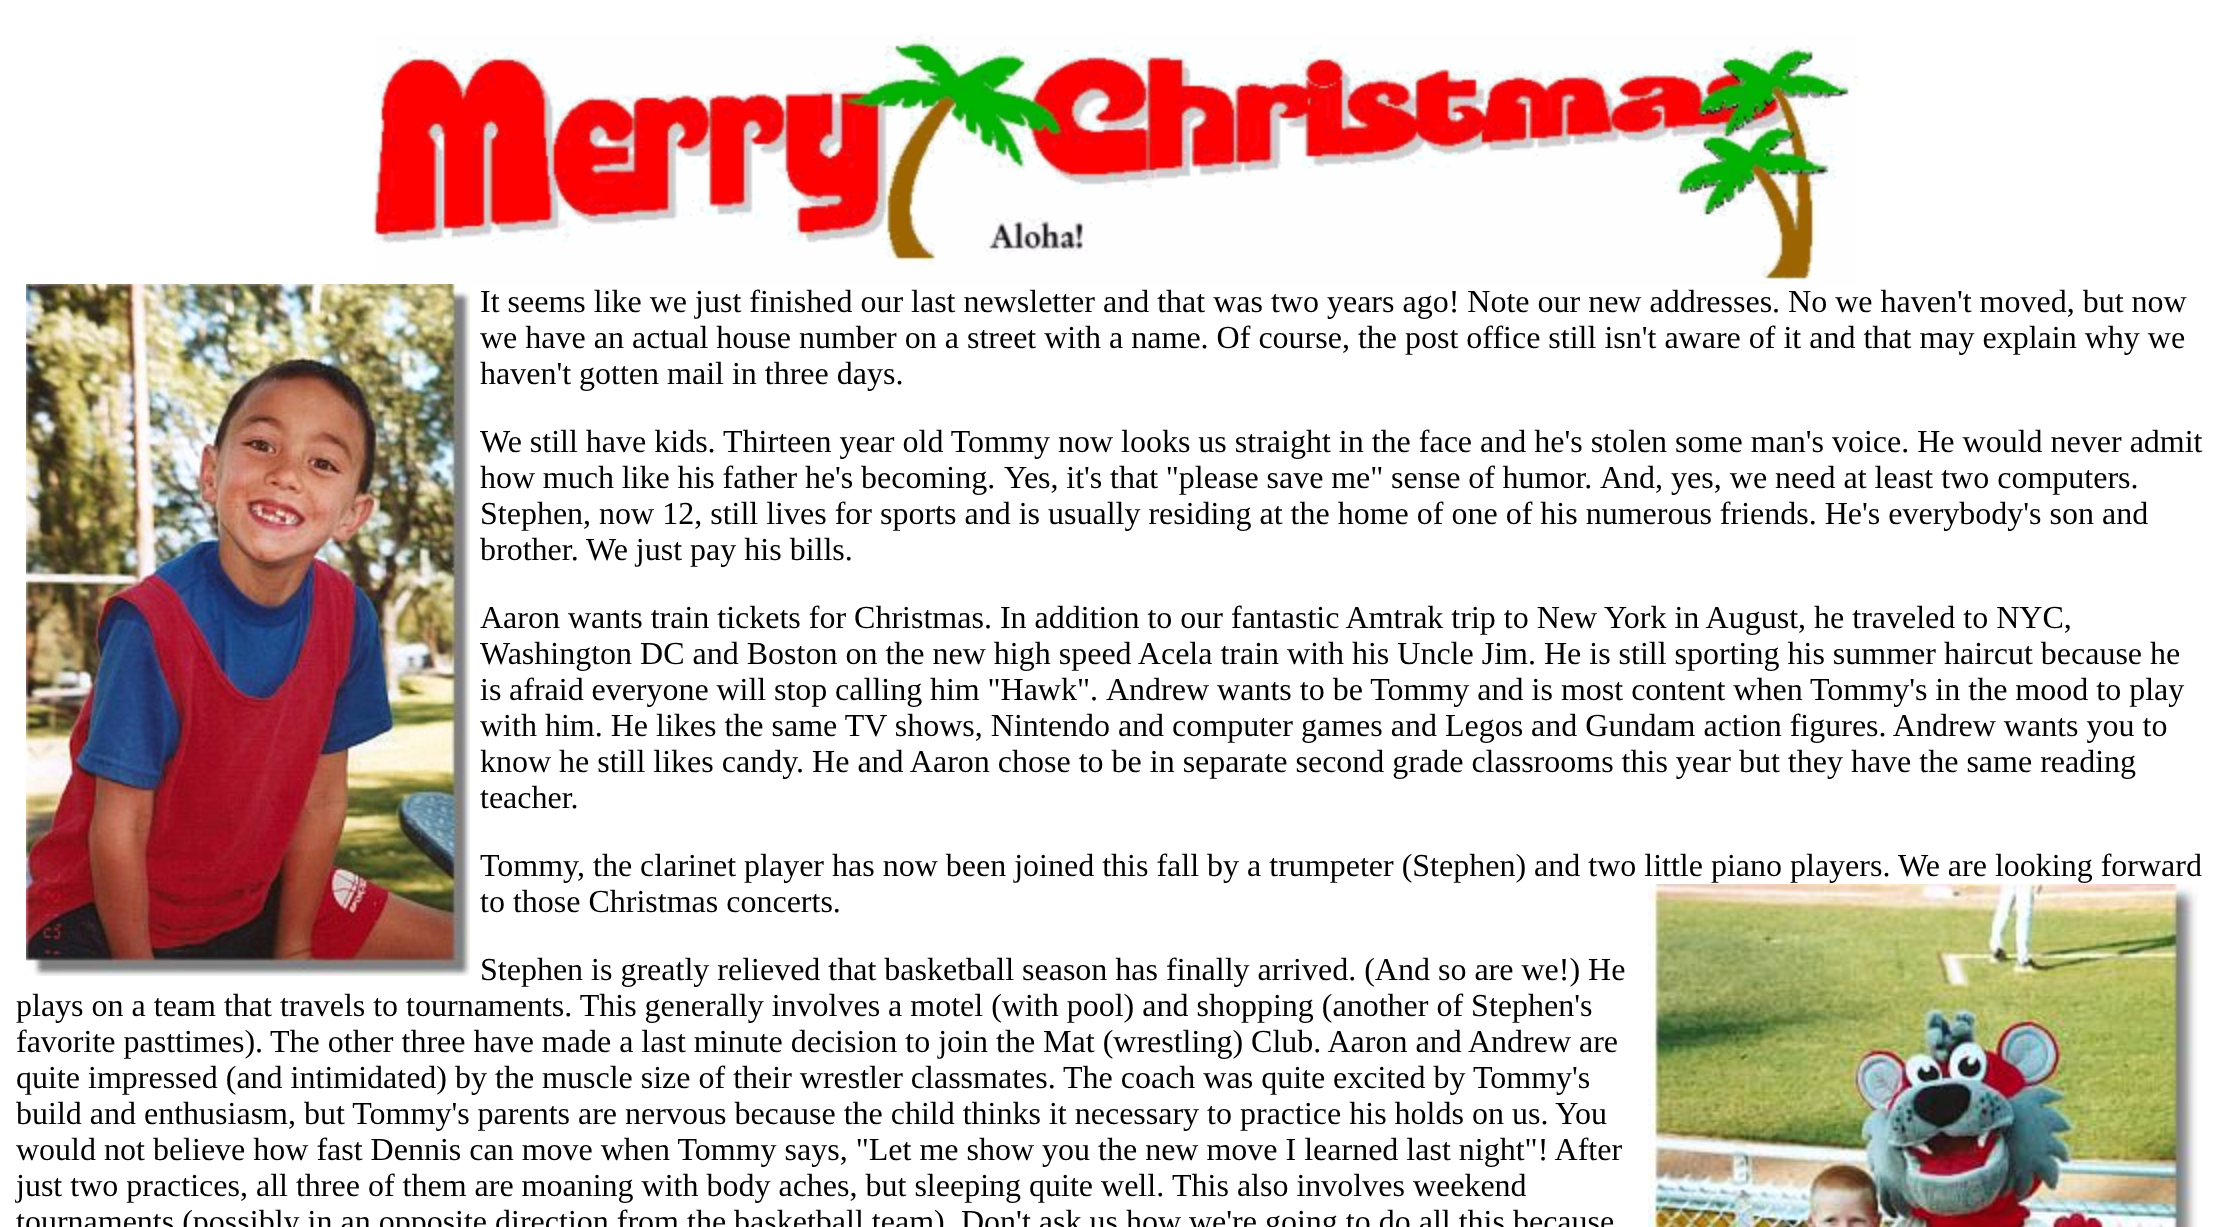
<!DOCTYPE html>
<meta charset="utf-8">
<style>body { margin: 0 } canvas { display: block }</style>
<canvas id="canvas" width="2223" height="1227"></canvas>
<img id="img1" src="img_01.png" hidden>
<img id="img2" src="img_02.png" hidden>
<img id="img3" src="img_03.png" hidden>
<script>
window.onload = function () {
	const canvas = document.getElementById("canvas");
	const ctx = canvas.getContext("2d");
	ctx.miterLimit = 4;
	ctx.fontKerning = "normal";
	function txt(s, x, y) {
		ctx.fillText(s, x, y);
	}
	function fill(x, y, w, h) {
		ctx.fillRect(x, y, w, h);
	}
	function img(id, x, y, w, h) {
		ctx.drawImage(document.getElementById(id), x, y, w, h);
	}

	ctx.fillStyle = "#FFFFFF";
	fill(0, 0, 2223, 1227);
	img("img1", 373, 34, 1486, 250);
	img("img2", 26, 284, 444, 692);
	img("img3", 1648, 884, 550, 343);
	ctx.font = "32px Liberation Serif";
	ctx.fillStyle = "#000000";
	txt("It seems like we just finished our last newsletter and that was two years ago! Note our new addresses. No we haven't moved, but now", 480, 312);
	txt("we have an actual house number on a street with a name. Of course, the post office still isn't aware of it and that may explain why we", 480, 348);
	txt("haven't gotten mail in three days.", 480, 384);
	txt("We still have kids. Thirteen year old Tommy now looks us straight in the face and he's stolen some man's voice. He would never admit", 480, 452);
	ctx.wordSpacing = "-0.25px";
	txt("how much like his father he's becoming.", 480, 488);
	txt("Yes, it's that \"please save me\" sense of humor.", 1004, 488);
	ctx.wordSpacing = "0px";
	txt("And, yes, we need at least two computers.", 1600, 488);
	txt("Stephen, now 12, still lives for sports and is usually residing at the home of one of his numerous friends. He's everybody's son and", 480, 524);
	txt("brother.", 480, 560);
	txt("We just pay his bills.", 586, 560);
	txt("Aaron wants train tickets for Christmas. In addition to our fantastic Amtrak trip to New York in August, he traveled to NYC,", 480, 628);
	txt("Washington DC and Boston on the new high speed Acela train with his Uncle Jim. He is still sporting his summer haircut because he", 480, 664);
	ctx.wordSpacing = "-0.25px";
	txt("is afraid everyone will stop calling him \"Hawk\".", 480, 700);
	ctx.wordSpacing = "0px";
	txt("Andrew wants to be Tommy and is most content when Tommy's in the mood to play", 1106, 700);
	txt("with him. He likes the same TV shows, Nintendo and computer games and Legos and Gundam action figures. Andrew wants you to", 480, 736);
	txt("know he still likes candy. He and Aaron chose to be in separate second grade classrooms this year but they have the same reading", 480, 772);
	txt("teacher.", 480, 808);
	txt("Tommy, the clarinet player has now been joined this fall by a trumpeter (Stephen) and two little piano players.", 480, 876);
	txt("We are looking forward", 1898, 876);
	txt("to those Christmas concerts.", 480, 912);
	txt("Stephen is greatly relieved that basketball season has finally arrived. (And so are we!) He", 480, 980);
	txt("plays on a team that travels to tournaments. This generally involves a motel (with pool) and shopping (another of Stephen's", 16, 1016);
	txt("favorite pasttimes).", 16, 1052);
	txt("The other three have made a last minute decision to join the Mat (wrestling) Club. Aaron and Andrew are", 270, 1052);
	txt("quite impressed (and intimidated) by the muscle size of their wrestler classmates.", 16, 1088);
	txt("The coach was quite excited by Tommy's", 1063, 1088);
	txt("build and enthusiasm, but Tommy's parents are nervous because the child thinks it necessary to practice his holds on us. You", 16, 1124);
	txt("would not believe how fast Dennis can move when Tommy says, \"Let me show you the new move I learned last night\"! After", 16, 1160);
	txt("just two practices, all three of them are moaning with body aches, but sleeping quite well.", 16, 1196);
	txt("This also involves weekend", 1172, 1196);
	txt("tournaments (possibly in an opposite direction from the basketball team)", 16, 1232);
	txt("Don't ask us how we're going to do all this because", 961, 1232);
};
</script>
